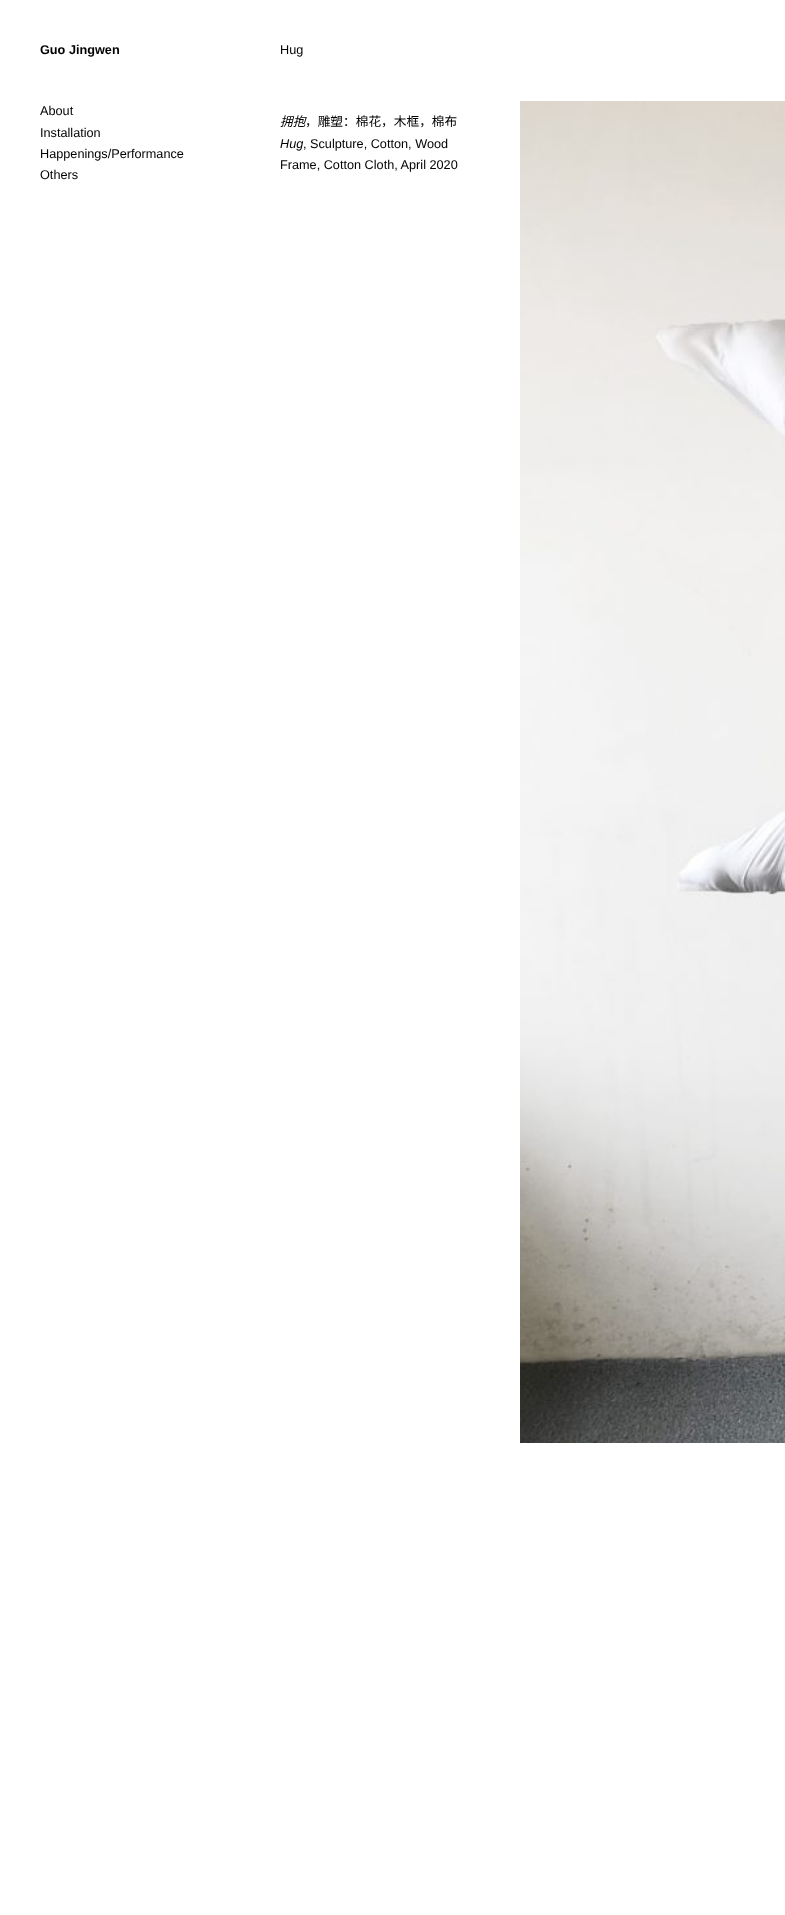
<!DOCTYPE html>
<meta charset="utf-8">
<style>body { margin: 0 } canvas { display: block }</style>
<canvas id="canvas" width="785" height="1915"></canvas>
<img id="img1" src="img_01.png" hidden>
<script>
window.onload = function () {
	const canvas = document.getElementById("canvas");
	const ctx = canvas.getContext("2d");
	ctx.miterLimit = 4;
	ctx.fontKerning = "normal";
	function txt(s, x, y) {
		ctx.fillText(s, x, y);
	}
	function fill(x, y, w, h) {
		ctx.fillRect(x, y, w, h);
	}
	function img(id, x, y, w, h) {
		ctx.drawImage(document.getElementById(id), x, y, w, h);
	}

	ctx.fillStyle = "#FFFFFF";
	fill(0, 0, 785, 1915);
	img("img1", 520, 101, 265, 1342);
	ctx.font = "bold 12.7px Liberation Sans";
	ctx.fillStyle = "#000000";
	txt("Guo Jingwen", 40, 54);
	ctx.font = "12.7px Liberation Sans";
	txt("About", 40, 115);
	txt("Installation", 40, 137);
	txt("Happenings/Performance", 40, 158);
	txt("Others", 40, 179);
	txt("Hug", 280, 54);
	ctx.font = "italic 12.7px Noto Sans CJK SC";
	txt("拥抱", 280, 126);
	ctx.font = "12.7px Noto Sans CJK SC";
	txt("，雕塑：棉花，木框，棉布", 305, 126);
	ctx.font = "italic 12.7px Liberation Sans";
	txt("Hug", 280, 148);
	ctx.font = "12.7px Liberation Sans";
	txt(", Sculpture, Cotton, Wood", 303, 148);
	txt("Frame, Cotton Cloth, April 2020", 280, 169);
};
</script>
